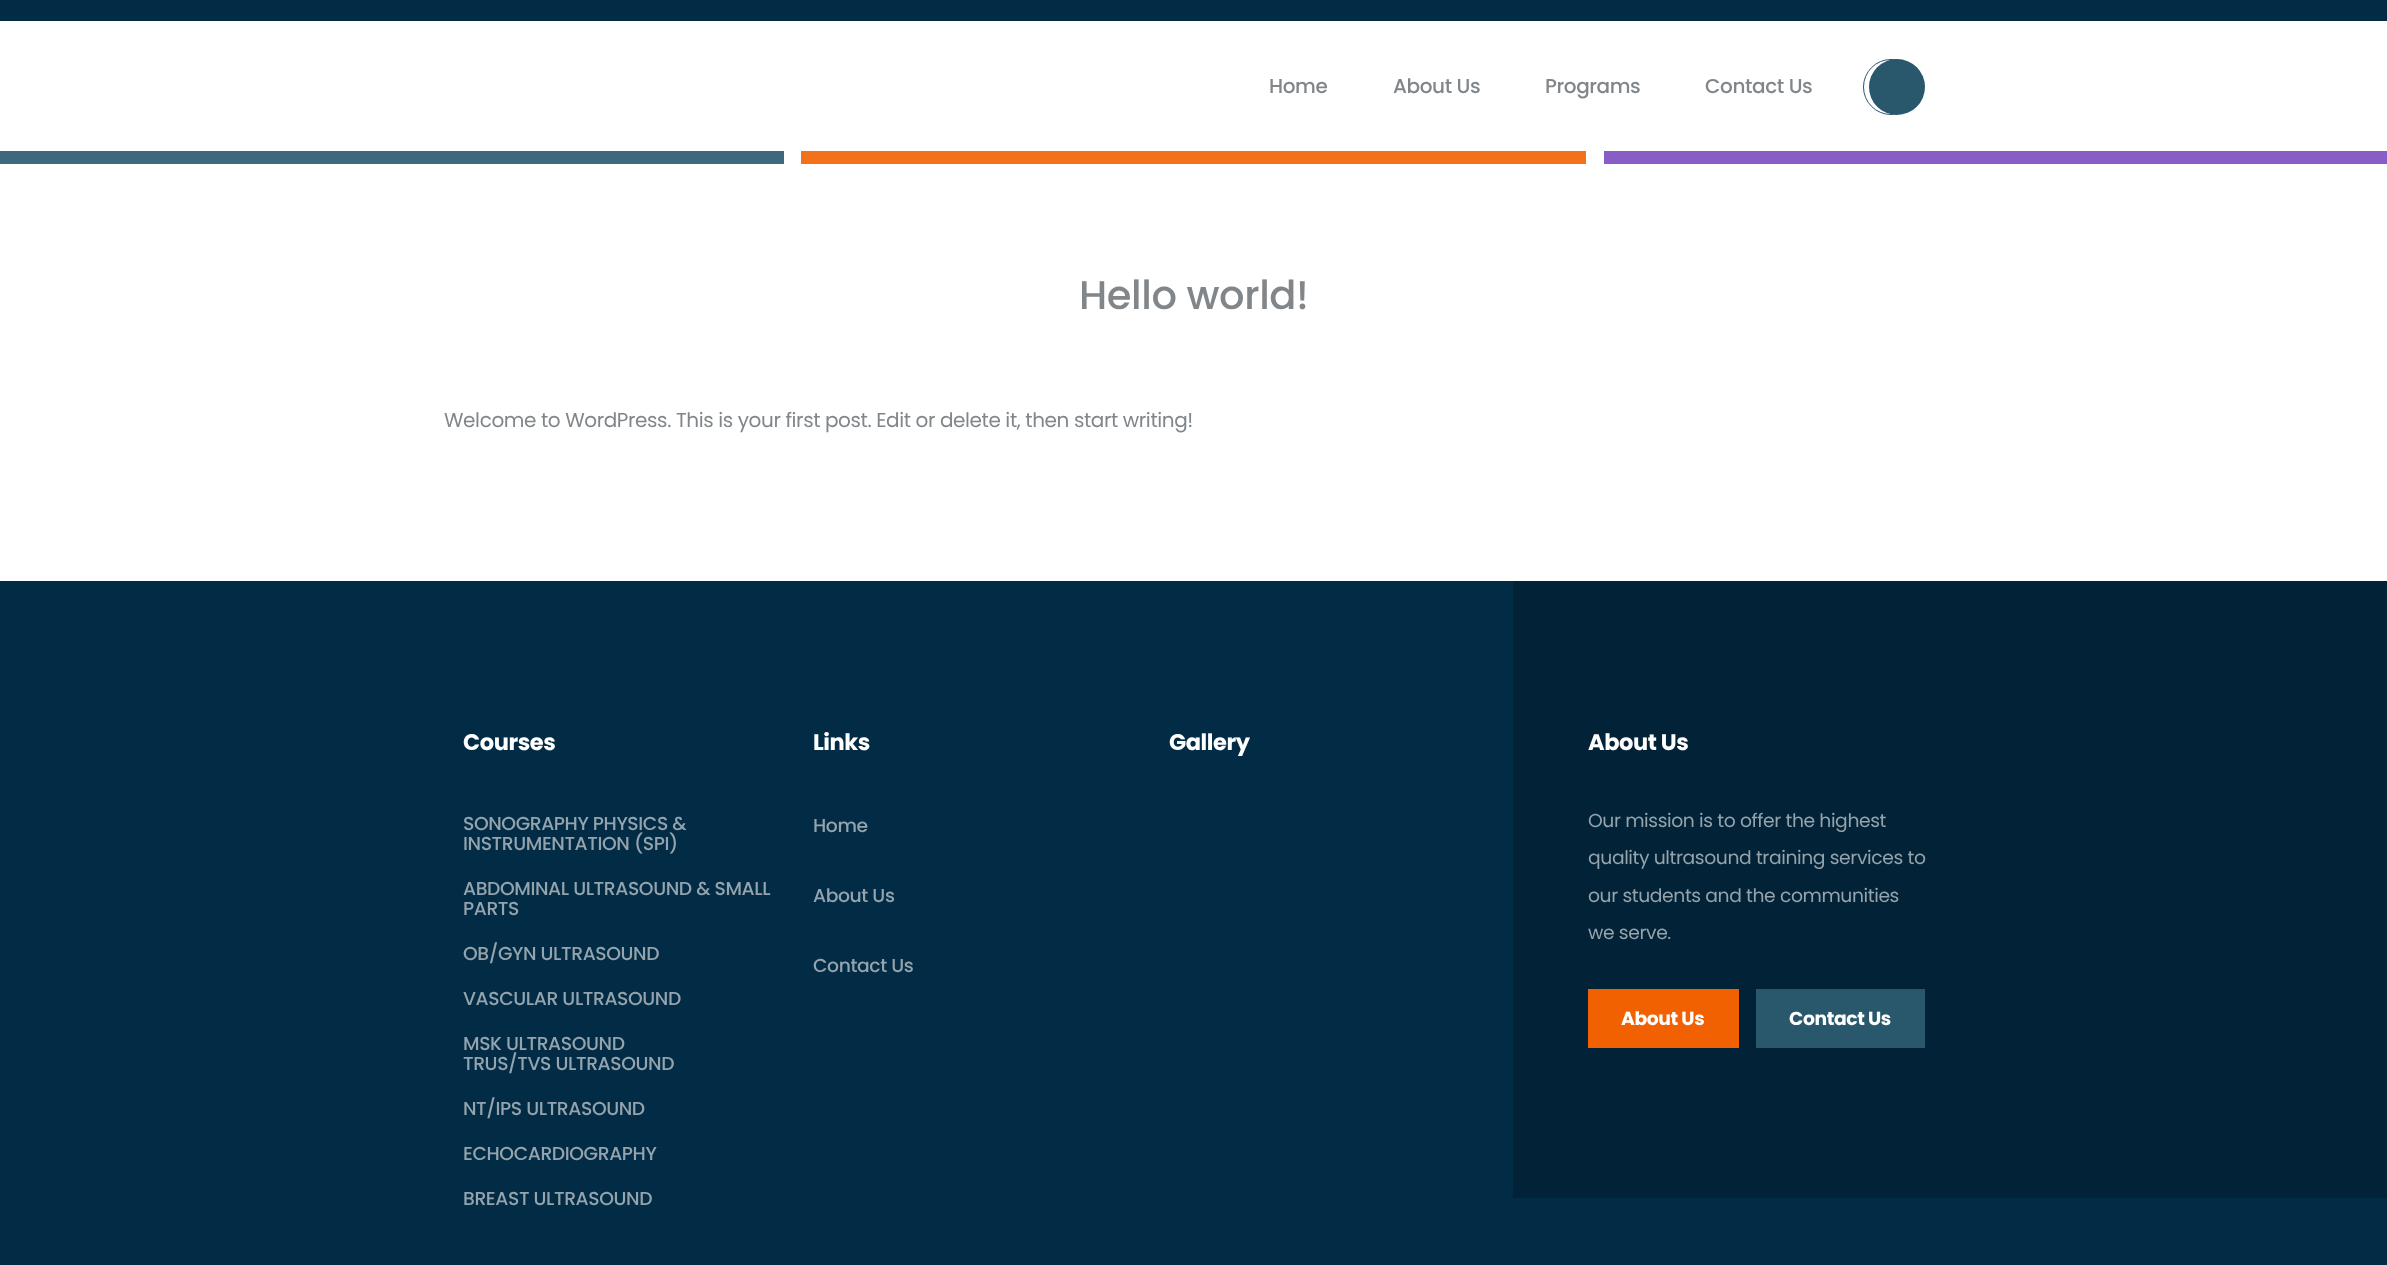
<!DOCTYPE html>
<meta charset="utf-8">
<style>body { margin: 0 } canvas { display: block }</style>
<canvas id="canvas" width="2387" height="1265"></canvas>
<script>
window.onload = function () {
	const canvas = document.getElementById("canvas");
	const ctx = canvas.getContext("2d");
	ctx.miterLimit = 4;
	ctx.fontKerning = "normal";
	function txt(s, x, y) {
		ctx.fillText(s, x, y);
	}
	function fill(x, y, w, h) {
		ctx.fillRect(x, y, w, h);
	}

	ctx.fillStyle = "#FFFFFF";
	fill(0, 0, 2387, 1265);
	ctx.fillStyle = "#022C46";
	fill(0, 0, 2387, 21);
	ctx.fillStyle = "#29576C";
	ctx.beginPath();
	ctx.arc(1897, 87, 28, 0, Math.PI * 2);
	ctx.fill();
	ctx.beginPath();
	ctx.arc(1891, 87, 27.5, 0, Math.PI * 2);
	ctx.strokeStyle = "#29576C";
	ctx.stroke();
	ctx.fillStyle = "#3E687B";
	fill(0, 151, 784, 13);
	ctx.fillStyle = "#F2711A";
	fill(801, 151, 785, 13);
	ctx.fillStyle = "#895DC6";
	fill(1604, 151, 783, 13);
	ctx.fillStyle = "#022C46";
	fill(0, 581, 2387, 684);
	ctx.fillStyle = "#012237";
	fill(1513, 581, 874, 617);
	ctx.fillStyle = "#F16101";
	fill(1588, 989, 151, 59);
	ctx.fillStyle = "#29576C";
	fill(1756, 989, 169, 59);
	ctx.letterSpacing = "-0.4px";
	ctx.font = "500 20px Poppins";
	ctx.fillStyle = "#81868A";
	txt("Home", 1269, 93);
	txt("About Us", 1393, 93);
	txt("Programs", 1545, 93);
	txt("Contact Us", 1705, 93);
	ctx.font = "500 40px Poppins";
	txt("Hello world!", 1079, 309);
	ctx.font = "20px Poppins";
	txt("Welcome to WordPress. This is your first post. Edit or delete it, then start writing!", 444, 427);
	ctx.font = "bold 22.5px Poppins";
	ctx.fillStyle = "#FFFFFF";
	txt("Courses", 463, 750);
	ctx.font = "500 18.75px Poppins";
	ctx.fillStyle = "#94A3AC";
	txt("SONOGRAPHY PHYSICS &", 463, 830);
	txt("INSTRUMENTATION (SPI)", 463, 850);
	txt("ABDOMINAL ULTRASOUND & SMALL", 463, 895);
	txt("PARTS", 463, 915);
	txt("OB/GYN ULTRASOUND", 463, 960);
	txt("VASCULAR ULTRASOUND", 463, 1005);
	txt("MSK ULTRASOUND", 463, 1050);
	txt("TRUS/TVS ULTRASOUND", 463, 1070);
	txt("NT/IPS ULTRASOUND", 463, 1115);
	txt("ECHOCARDIOGRAPHY", 463, 1160);
	txt("BREAST ULTRASOUND", 463, 1205);
	ctx.font = "bold 22.5px Poppins";
	ctx.fillStyle = "#FFFFFF";
	txt("Links", 813, 750);
	ctx.font = "500 18.75px Poppins";
	ctx.fillStyle = "#94A3AC";
	txt("Home", 813, 832);
	txt("About Us", 813, 902);
	txt("Contact Us", 813, 972);
	ctx.font = "bold 22.5px Poppins";
	ctx.fillStyle = "#FFFFFF";
	txt("Gallery", 1169, 750);
	txt("About Us", 1588, 750);
	ctx.font = "18.75px Poppins";
	ctx.fillStyle = "#94A3AC";
	txt("Our mission is to offer the highest", 1588, 827);
	txt("quality ultrasound training services to", 1588, 864);
	txt("our students and the communities", 1588, 902);
	txt("we serve.", 1588, 939);
	ctx.font = "bold 18.75px Poppins";
	ctx.fillStyle = "#FFFFFF";
	txt("About Us", 1621, 1025);
	txt("Contact Us", 1789, 1025);
};
</script>
